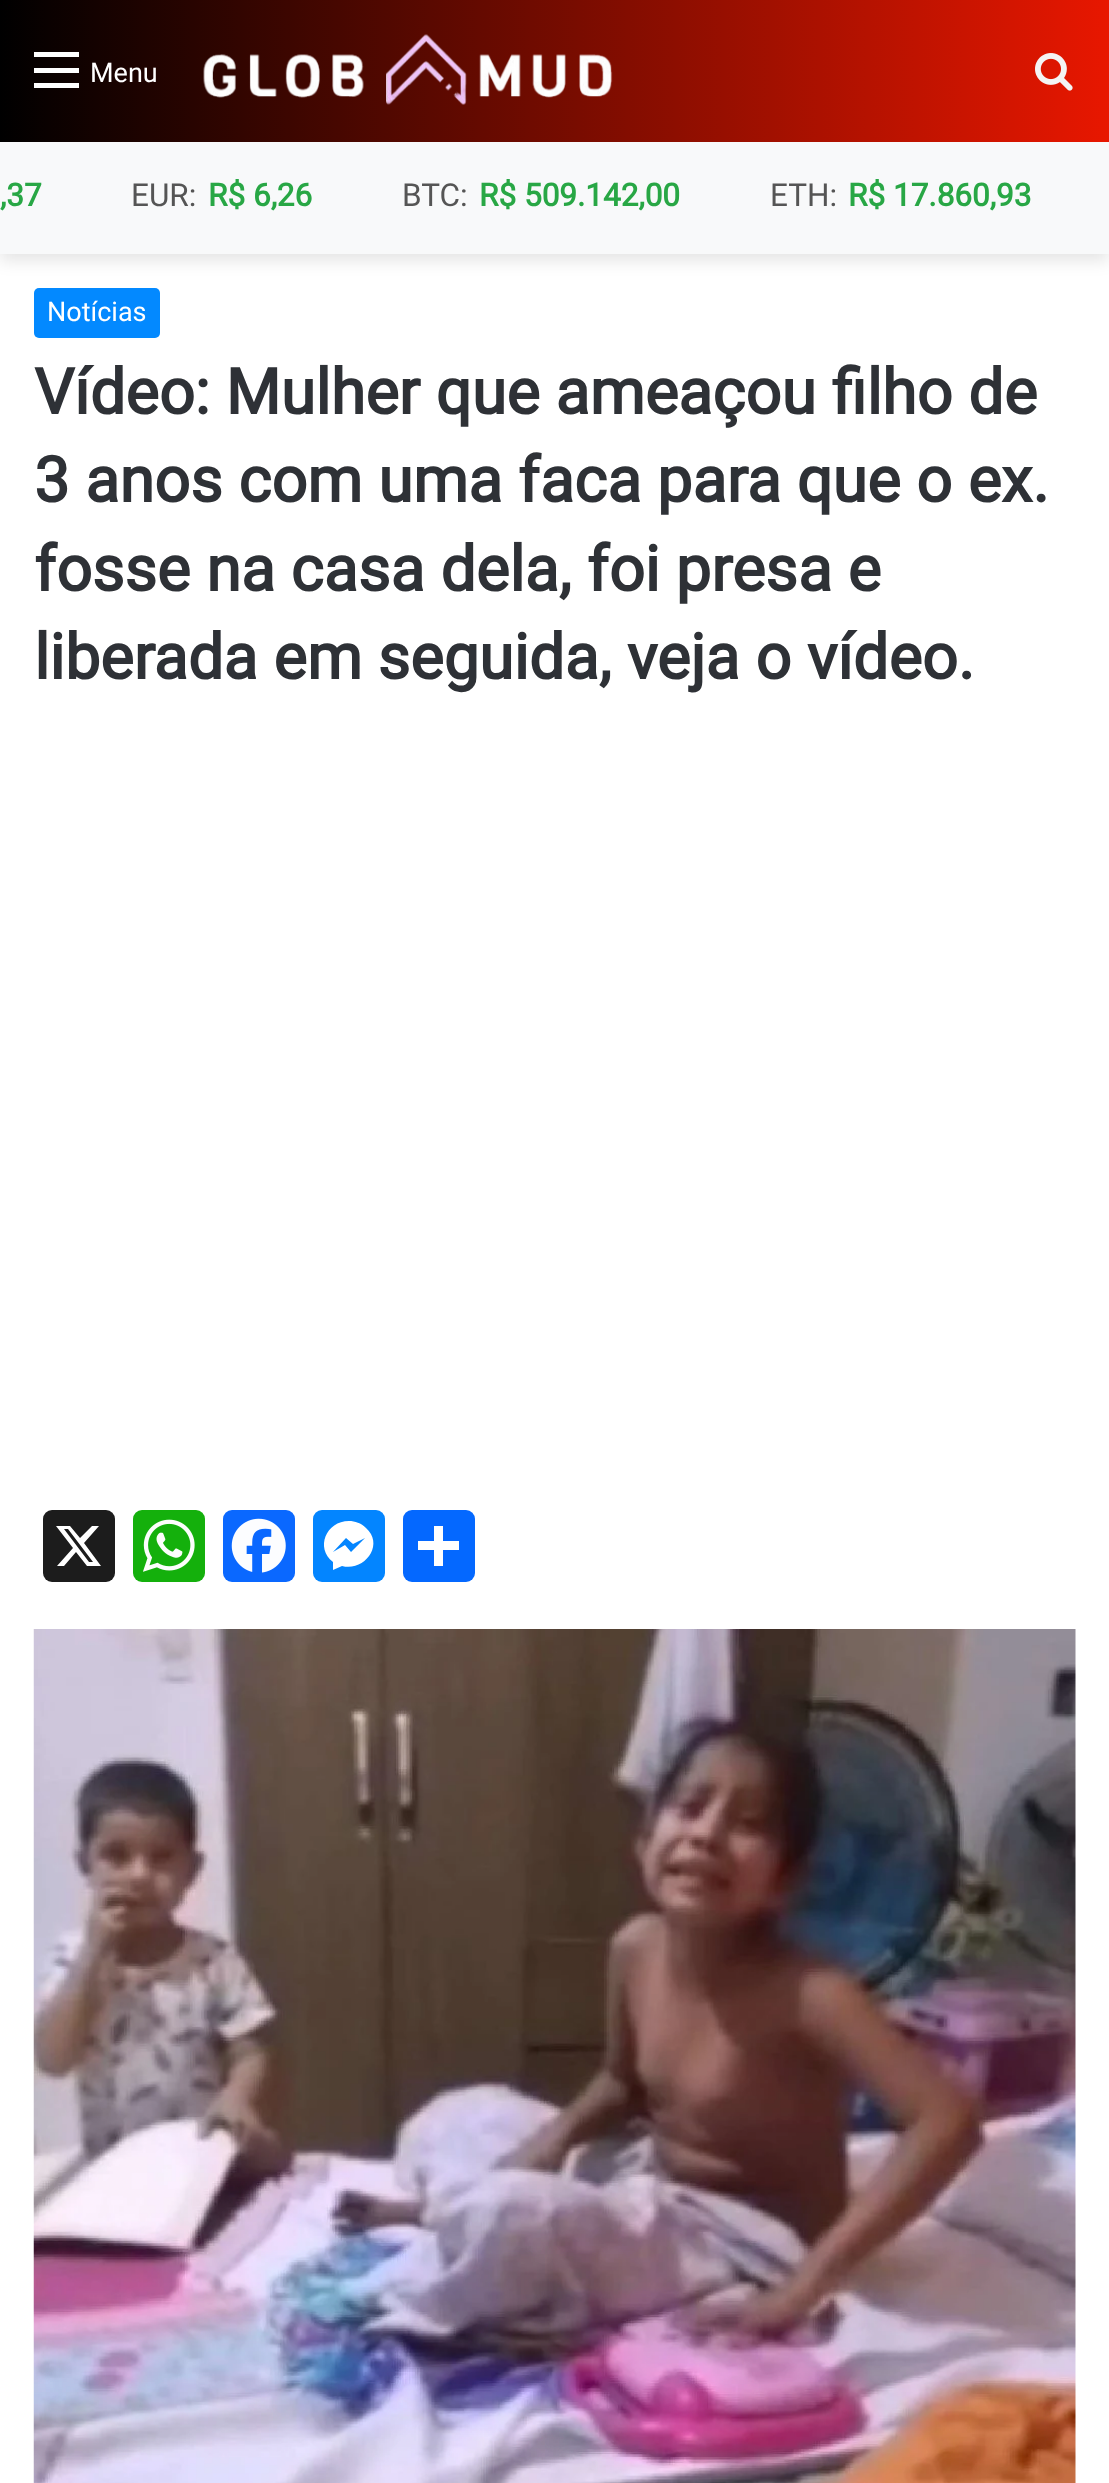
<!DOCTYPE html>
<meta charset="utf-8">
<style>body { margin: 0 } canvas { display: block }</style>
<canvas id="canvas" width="1109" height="2483"></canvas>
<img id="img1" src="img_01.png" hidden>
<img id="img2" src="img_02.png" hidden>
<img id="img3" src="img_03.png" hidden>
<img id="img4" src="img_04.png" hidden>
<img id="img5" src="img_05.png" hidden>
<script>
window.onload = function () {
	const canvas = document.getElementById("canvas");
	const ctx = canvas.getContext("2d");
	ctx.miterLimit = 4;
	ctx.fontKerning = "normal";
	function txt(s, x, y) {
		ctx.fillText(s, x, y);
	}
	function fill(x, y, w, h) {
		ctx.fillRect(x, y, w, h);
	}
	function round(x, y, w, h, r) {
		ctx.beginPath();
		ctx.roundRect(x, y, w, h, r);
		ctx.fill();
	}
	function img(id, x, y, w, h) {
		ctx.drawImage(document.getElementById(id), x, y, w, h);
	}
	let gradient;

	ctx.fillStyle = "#FFFFFF";
	fill(0, 0, 1109, 2483);
	ctx.fillStyle = "rgba(0, 0, 0, 0.1)";
	ctx.filter = "blur(8px)";
	ctx.beginPath();
	ctx.rect(0, 7, 1109, 254);
	ctx.fill();
	ctx.filter = "none";
	gradient = ctx.createLinearGradient(0, 127, 1109, 127);
	gradient.addColorStop(0, "#000000");
	gradient.addColorStop(1, "#E81700");
	ctx.fillStyle = gradient;
	fill(0, 0, 1109, 142);
	ctx.fillStyle = "#FFFFFF";
	fill(34, 68, 45, 5);
	fill(34, 52, 45, 5);
	fill(34, 83, 45, 5);
	img("img1", 203, 34, 410, 71);
	img("img2", 1035, 53, 38, 38);
	ctx.fillStyle = "#F8F9FA";
	fill(0, 142, 1109, 112);
	ctx.fillStyle = "#0389FF";
	round(34, 288, 126, 50, 5);
	ctx.fillStyle = "#1C1C1C";
	round(43, 1510, 72, 72, 9);
	ctx.fillStyle = "#FFFFFF";
	ctx.beginPath();
	ctx.moveTo(92, 1526);
	ctx.lineTo(99, 1526);
	ctx.lineTo(84, 1543);
	ctx.lineTo(101, 1566);
	ctx.lineTo(87, 1566);
	ctx.lineTo(76, 1552);
	ctx.lineTo(64, 1566);
	ctx.lineTo(57, 1566);
	ctx.lineTo(73, 1548);
	ctx.lineTo(56, 1526);
	ctx.lineTo(70, 1526);
	ctx.lineTo(80, 1538);
	ctx.closePath();
	ctx.moveTo(89, 1562);
	ctx.lineTo(93, 1562);
	ctx.lineTo(68, 1529);
	ctx.lineTo(64, 1529);
	ctx.closePath();
	ctx.fill();
	ctx.fillStyle = "#14B00C";
	round(133, 1510, 72, 72, 9);
	img("img3", 143, 1519, 52, 53);
	ctx.fillStyle = "#0A68FF";
	round(223, 1510, 72, 72, 9);
	img("img4", 231, 1518, 55, 55);
	ctx.fillStyle = "#0385FF";
	round(313, 1510, 72, 72, 9);
	ctx.fillStyle = "#FFFFFF";
	ctx.beginPath();
	ctx.moveTo(349, 1521);
	ctx.bezierCurveTo(326, 1521, 315, 1548, 333, 1562);
	ctx.lineTo(333, 1570);
	ctx.lineTo(342, 1566);
	ctx.bezierCurveTo(364, 1572, 385, 1545, 366, 1528);
	ctx.bezierCurveTo(361, 1523, 355, 1521, 349, 1521);
	ctx.moveTo(351, 1552);
	ctx.lineTo(345, 1545);
	ctx.lineTo(333, 1552);
	ctx.lineTo(346, 1538);
	ctx.lineTo(353, 1544);
	ctx.lineTo(365, 1538);
	ctx.closePath();
	ctx.fill();
	ctx.fillStyle = "#0468FF";
	round(403, 1510, 72, 72, 9);
	ctx.fillStyle = "#FFFFFF";
	fill(434, 1526, 9, 40);
	fill(418, 1541, 41, 9);
	img("img5", 33, 1629, 1043, 854);
	ctx.font = "27px Roboto";
	txt("Menu", 90, 82);
	ctx.font = "bold 31.5px Roboto";
	ctx.fillStyle = "#28A745";
	txt(",37", 0, 206);
	ctx.font = "31.5px Roboto";
	ctx.fillStyle = "#555555";
	txt("EUR:", 131, 206);
	ctx.font = "bold 31.5px Roboto";
	ctx.fillStyle = "#28A745";
	txt("R$ 6,26", 208, 206);
	ctx.font = "31.5px Roboto";
	ctx.fillStyle = "#555555";
	txt("BTC:", 402, 206);
	ctx.font = "bold 31.5px Roboto";
	ctx.fillStyle = "#28A745";
	txt("R$ 509.142,00", 479, 206);
	ctx.font = "31.5px Roboto";
	ctx.fillStyle = "#555555";
	txt("ETH:", 770, 206);
	ctx.font = "bold 31.5px Roboto";
	ctx.fillStyle = "#28A745";
	txt("R$ 17.860,93", 848, 206);
	ctx.font = "27px Roboto";
	ctx.fillStyle = "#FFFFFF";
	txt("Notícias", 47, 321);
	ctx.font = "bold 63px Roboto";
	ctx.fillStyle = "#2E3136";
	txt("Vídeo: Mulher que ameaçou filho de", 34, 414);
	txt("3 anos com uma faca para que o ex.", 34, 502);
	txt("fosse na casa dela, foi presa e", 34, 591);
	txt("liberada em seguida, veja o vídeo.", 34, 679);
};
</script>
